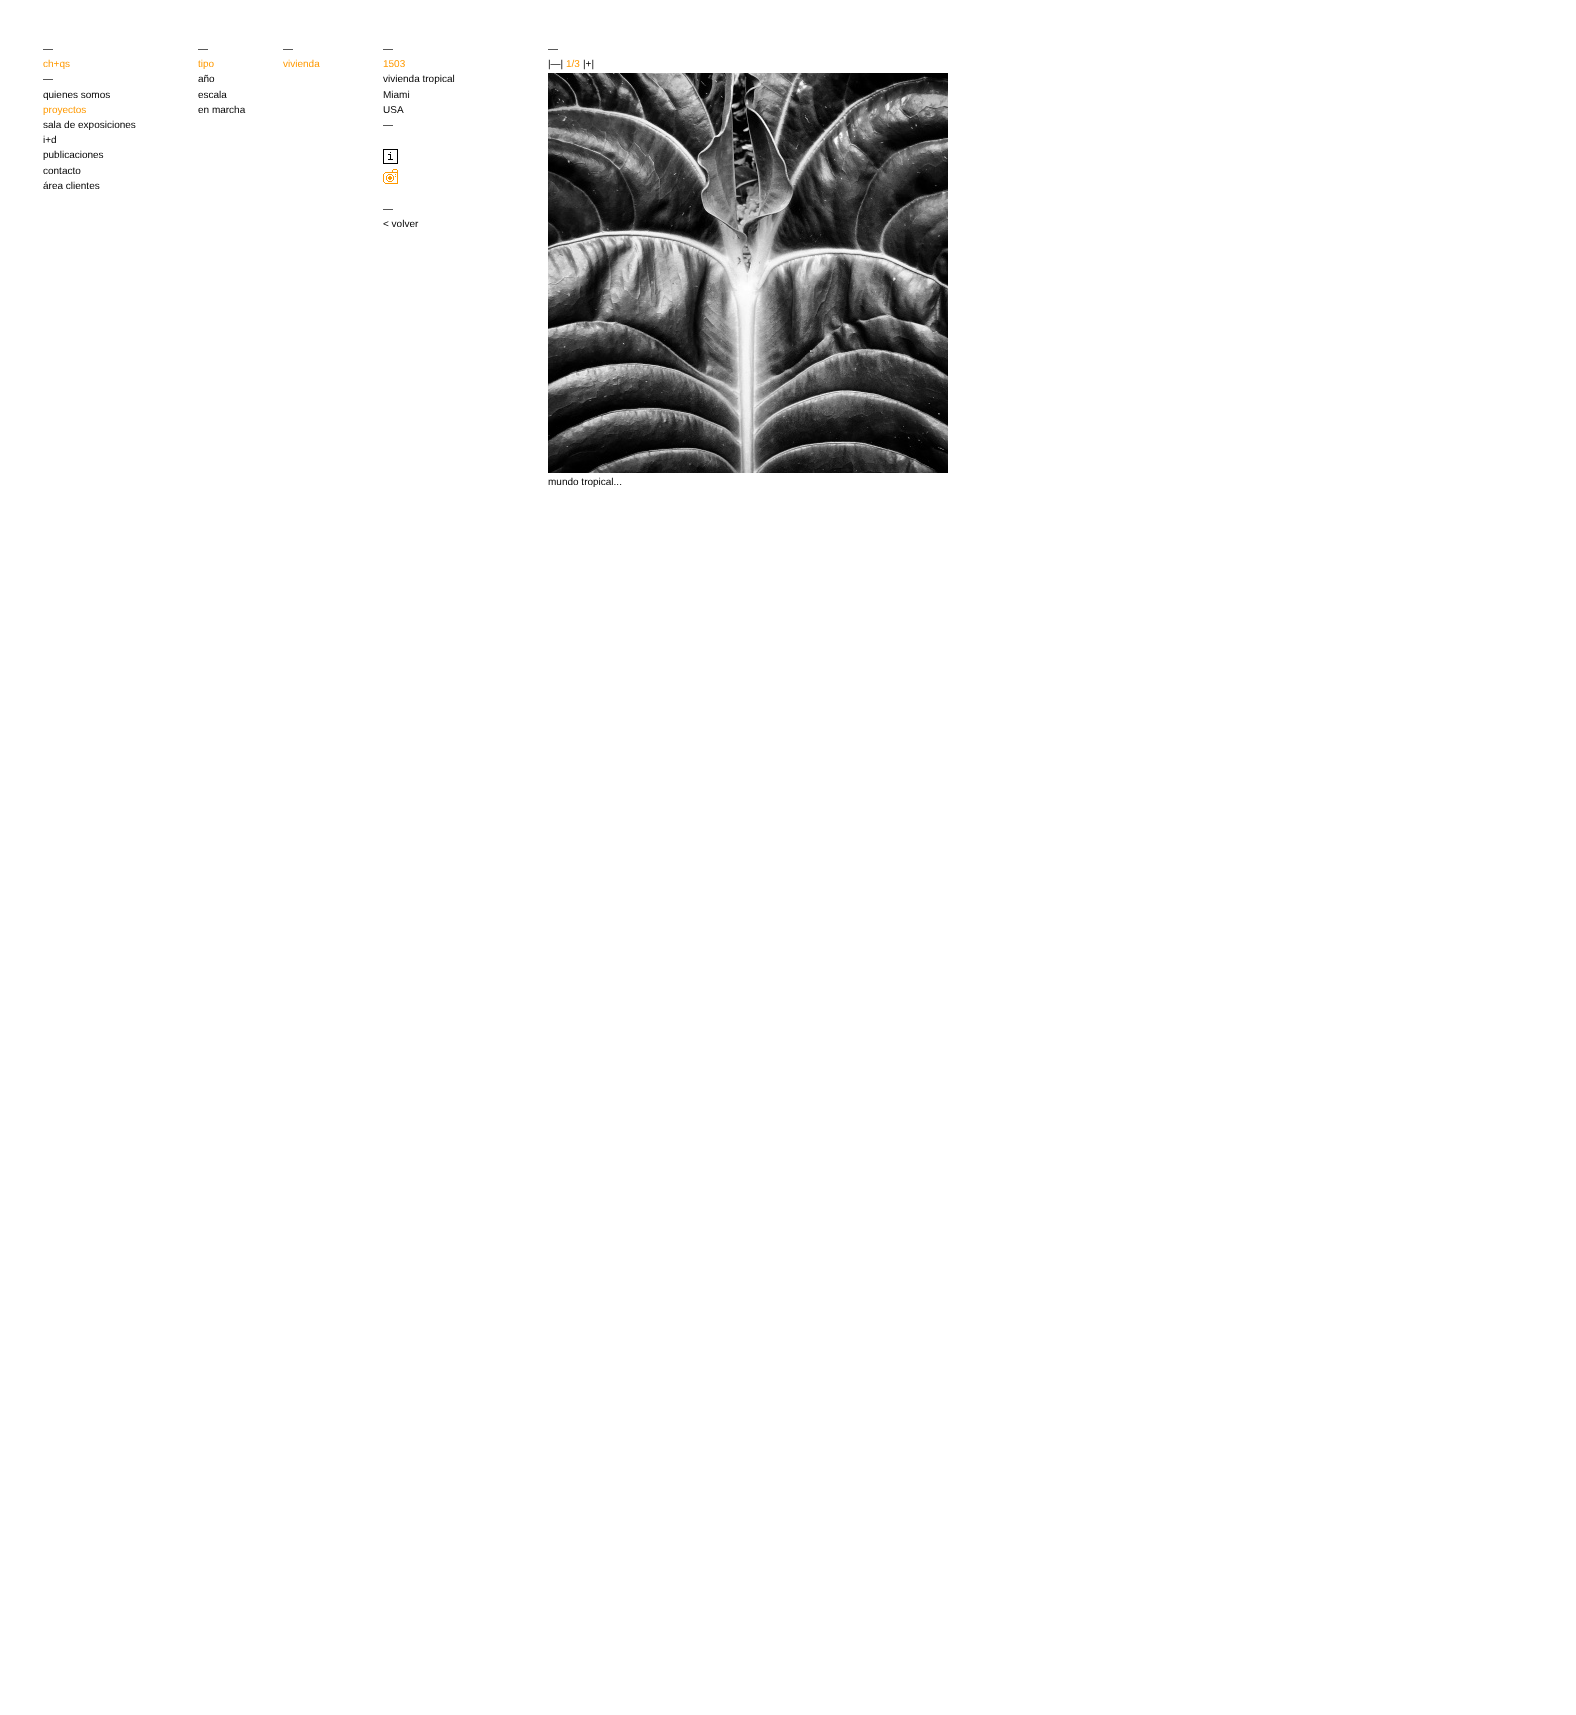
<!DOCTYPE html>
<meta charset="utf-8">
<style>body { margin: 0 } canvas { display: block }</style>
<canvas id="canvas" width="1576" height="1715"></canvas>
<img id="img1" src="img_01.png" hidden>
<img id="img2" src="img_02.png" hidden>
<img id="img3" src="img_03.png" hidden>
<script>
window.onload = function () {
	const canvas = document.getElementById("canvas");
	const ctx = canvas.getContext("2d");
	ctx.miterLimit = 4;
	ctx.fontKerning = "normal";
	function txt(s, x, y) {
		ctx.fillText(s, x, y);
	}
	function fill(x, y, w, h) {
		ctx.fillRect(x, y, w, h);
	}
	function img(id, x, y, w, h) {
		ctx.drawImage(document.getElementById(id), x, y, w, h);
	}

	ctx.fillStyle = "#FFFFFF";
	fill(0, 0, 1576, 1715);
	img("img1", 383, 149, 15, 15);
	img("img2", 383, 169, 15, 15);
	img("img3", 548, 73, 400, 400);
	ctx.font = "10px Liberation Sans";
	ctx.fillStyle = "#000000";
	txt("—", 43, 52);
	ctx.fillStyle = "#FF9900";
	txt("ch+qs", 43, 67);
	ctx.fillStyle = "#000000";
	txt("—", 43, 82);
	txt("quienes somos", 43, 98);
	ctx.fillStyle = "#FF9900";
	txt("proyectos", 43, 113);
	ctx.fillStyle = "#000000";
	txt("sala de exposiciones", 43, 128);
	txt("i+d", 43, 143);
	txt("publicaciones", 43, 158);
	txt("contacto", 43, 174);
	txt("área clientes", 43, 189);
	txt("—", 198, 52);
	ctx.fillStyle = "#FF9900";
	txt("tipo", 198, 67);
	ctx.fillStyle = "#000000";
	txt("año", 198, 82);
	txt("escala", 198, 98);
	txt("en marcha", 198, 113);
	txt("—", 283, 52);
	ctx.fillStyle = "#FF9900";
	txt("vivienda", 283, 67);
	ctx.fillStyle = "#000000";
	txt("—", 383, 52);
	ctx.fillStyle = "#FF9900";
	txt("1503", 383, 67);
	ctx.fillStyle = "#000000";
	txt("vivienda tropical", 383, 82);
	txt("Miami", 383, 98);
	txt("USA", 383, 113);
	txt("—", 383, 128);
	txt("—", 383, 212);
	txt("< volver", 383, 227);
	txt("—", 548, 52);
	txt("|—|", 548, 67);
	ctx.fillStyle = "#FF9900";
	txt("1/3", 566, 67);
	ctx.fillStyle = "#000000";
	txt("|+|", 583, 67);
	txt("mundo tropical...", 548, 485);
};
</script>
